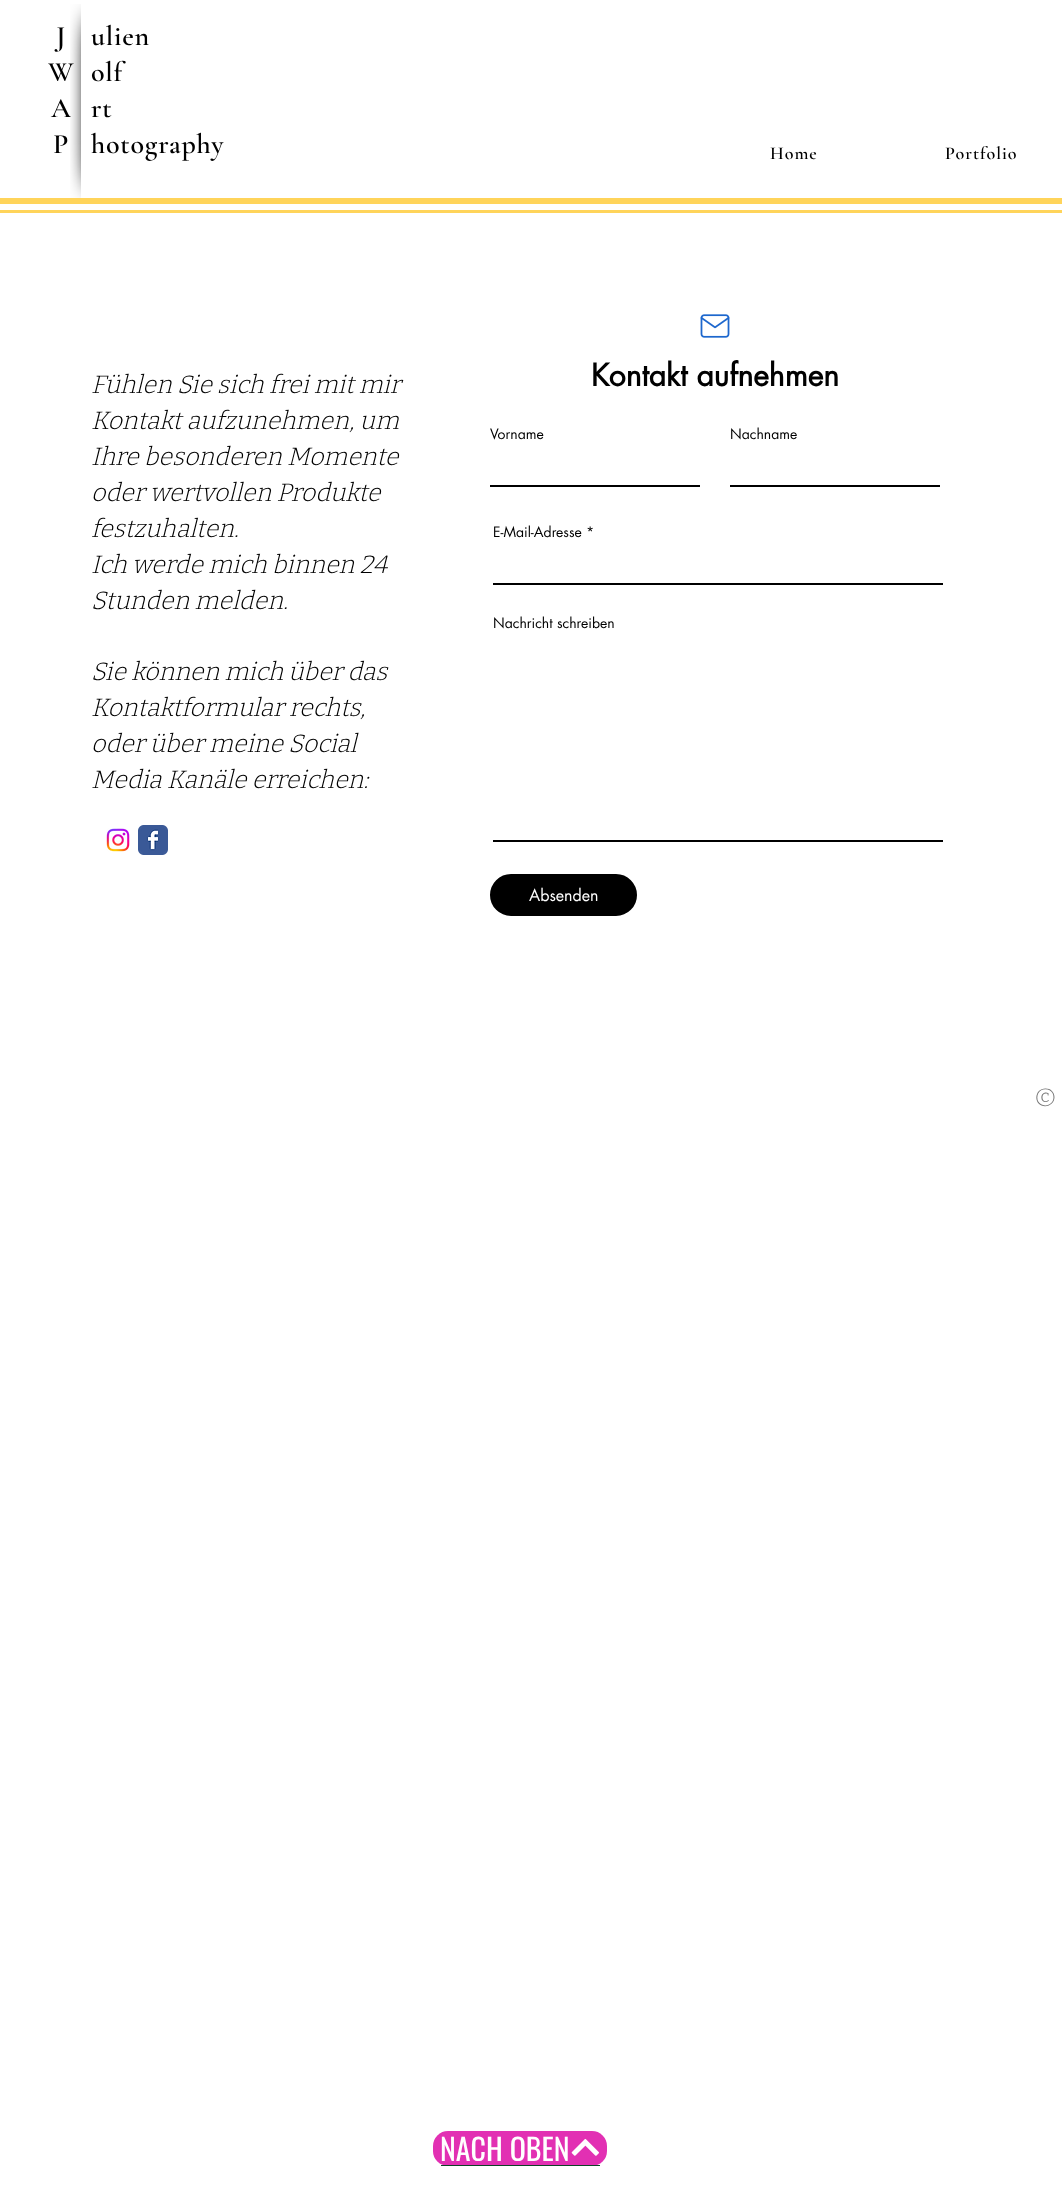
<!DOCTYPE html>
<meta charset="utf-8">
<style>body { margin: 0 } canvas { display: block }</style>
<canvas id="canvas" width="1062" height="2190"></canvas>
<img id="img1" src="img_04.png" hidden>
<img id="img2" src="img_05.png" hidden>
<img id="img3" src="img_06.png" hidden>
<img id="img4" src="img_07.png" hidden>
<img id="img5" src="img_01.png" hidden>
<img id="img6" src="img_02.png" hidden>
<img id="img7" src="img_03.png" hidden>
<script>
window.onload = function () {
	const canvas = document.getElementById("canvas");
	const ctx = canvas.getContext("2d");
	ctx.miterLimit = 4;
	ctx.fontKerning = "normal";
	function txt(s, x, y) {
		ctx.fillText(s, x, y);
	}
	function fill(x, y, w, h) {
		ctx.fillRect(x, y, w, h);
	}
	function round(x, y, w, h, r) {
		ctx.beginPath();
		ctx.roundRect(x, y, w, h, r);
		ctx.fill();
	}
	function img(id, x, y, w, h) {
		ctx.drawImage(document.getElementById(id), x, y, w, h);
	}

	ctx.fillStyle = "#FFFFFF";
	fill(0, 0, 1062, 2190);
	ctx.fillStyle = "#FFD45A";
	fill(0, 198, 1062, 6);
	fill(0, 210, 1062, 3);
	img("img1", 700, 314, 30, 24);
	ctx.fillStyle = "#000000";
	fill(490, 485, 210, 2);
	fill(730, 485, 210, 2);
	fill(493, 583, 450, 2);
	fill(493, 840, 450, 2);
	ctx.beginPath();
	ctx.roundRect(491, 875, 145, 40, 20);
	ctx.fill();
	ctx.strokeStyle = "#000000";
	ctx.lineWidth = 2;
	ctx.stroke();
	img("img2", 106, 828, 24, 24);
	img("img3", 138, 825, 30, 30);
	ctx.fillStyle = "#E230B3";
	round(433, 2131, 174, 35, 15);
	ctx.fillStyle = "#0C4426";
	fill(441, 2165, 159, 1);
	img("img4", 571, 2138, 28, 18);
	ctx.letterSpacing = "0.75px";
	ctx.font = "600 28px Cormorant Garamond";
	ctx.fillStyle = "#000000";
	txt("J", 56, 45);
	txt("W", 48, 81);
	txt("A", 51, 117);
	txt("P", 53, 153);
	img("img5", 70, 4, 11, 97);
	img("img6", 70, 101, 11, 3);
	img("img7", 70, 104, 11, 94);
	txt("ulien", 91, 45);
	txt("olf", 91, 81);
	txt("rt", 91, 117);
	txt("hotography", 91, 153);
	ctx.letterSpacing = "1px";
	ctx.font = "600 18px Cormorant Garamond";
	txt("Home", 770, 159);
	txt("Portfolio", 945, 159);
	ctx.letterSpacing = "0px";
	ctx.font = "italic 100 25px Bitter";
	txt("Fühlen Sie sich frei mit mir", 91, 393);
	txt("Kontakt aufzunehmen, um", 91, 429);
	txt("Ihre besonderen Momente", 91, 465);
	txt("oder wertvollen Produkte", 91, 501);
	txt("festzuhalten.", 91, 537);
	txt("Ich werde mich binnen 24", 91, 573);
	txt("Stunden melden.", 91, 609);
	txt("Sie können mich über das", 91, 680);
	txt("Kontaktformular rechts,", 91, 716);
	txt("oder über meine Social", 91, 752);
	txt("Media Kanäle erreichen:", 91, 788);
	ctx.font = "bold 30px futura";
	txt("Kontakt aufnehmen", 591, 386);
	ctx.font = "14px futura";
	txt("Vorname", 490, 439);
	txt("Nachname", 730, 439);
	txt("E-Mail-Adresse *", 493, 537);
	txt("Nachricht schreiben", 493, 628);
	ctx.font = "16px futura";
	ctx.fillStyle = "#FFFFFF";
	txt("Absenden", 529, 901);
	ctx.font = "100 25px Bitter";
	ctx.fillStyle = "#757575";
	txt("©", 1034, 1106);
	ctx.save();
	ctx.beginPath();
	ctx.rect(440, 2135, 130, 26);
	ctx.clip();
	ctx.font = "30px Oswald";
	ctx.fillStyle = "#FFFFFF";
	txt("NACH OBEN", 440, 2161);
	ctx.restore();
};
</script>
